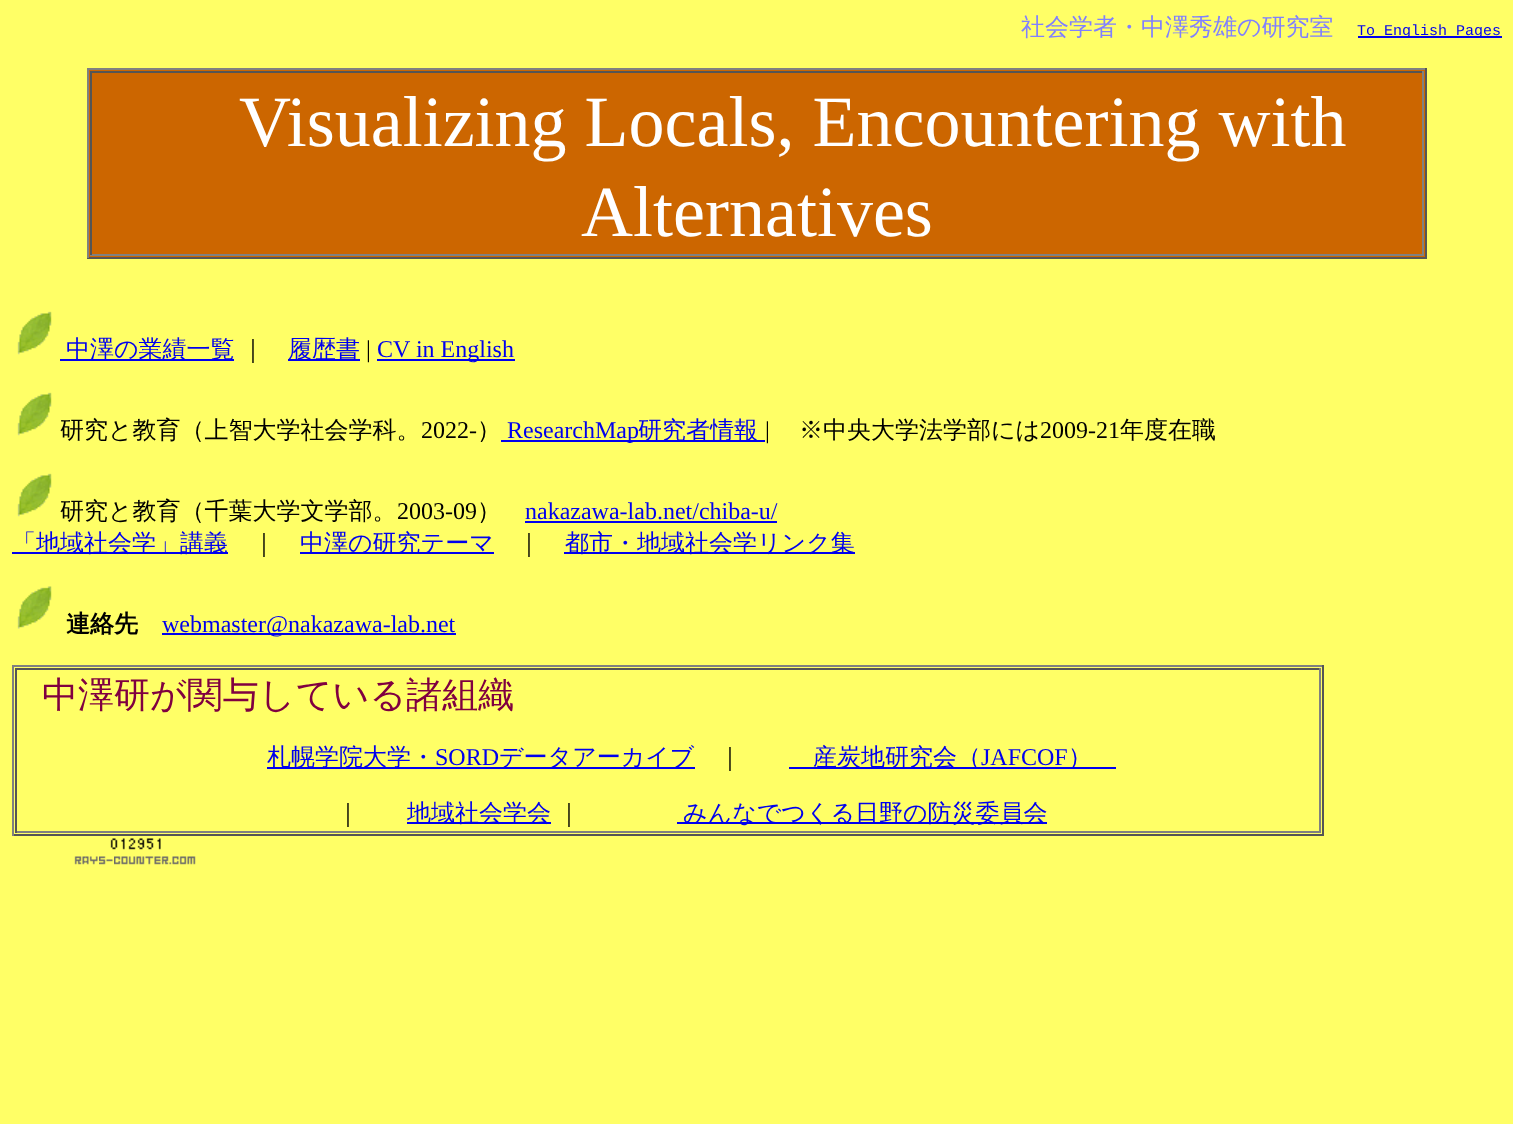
<!DOCTYPE html>
<meta charset="utf-8">
<style>body { margin: 0 } canvas { display: block }</style>
<canvas id="canvas" width="1513" height="1124"></canvas>
<img id="img1" src="img_01.png" hidden>
<img id="img2" src="img_02.png" hidden>
<img id="img3" src="img_03.png" hidden>
<img id="img4" src="img_04.png" hidden>
<img id="img5" src="img_05.png" hidden>
<img id="img6" src="img_06.png" hidden>
<img id="img7" src="img_07.png" hidden>
<img id="img8" src="img_08.png" hidden>
<script>
window.onload = function () {
	const canvas = document.getElementById("canvas");
	const ctx = canvas.getContext("2d");
	ctx.miterLimit = 4;
	ctx.fontKerning = "normal";
	function txt(s, x, y) {
		ctx.fillText(s, x, y);
	}
	function fill(x, y, w, h) {
		ctx.fillRect(x, y, w, h);
	}
	function img(id, x, y, w, h) {
		ctx.drawImage(document.getElementById(id), x, y, w, h);
	}

	ctx.fillStyle = "#FFFF66";
	fill(0, 0, 1513, 1124);
	ctx.fillStyle = "#0000EE";
	fill(1358, 36, 144, 2);
	ctx.fillStyle = "#CC6600";
	fill(89, 70, 1336, 187);
	ctx.fillStyle = "#808080";
	fill(87, 68, 1340, 2);
	ctx.fillStyle = "#555555";
	fill(1425, 68, 2, 190);
	fill(87, 257, 1340, 2);
	ctx.fillStyle = "#808080";
	fill(87, 68, 2, 190);
	ctx.fillStyle = "#555555";
	fill(90, 71, 1334, 2);
	ctx.fillStyle = "#808080";
	fill(1422, 71, 2, 184);
	fill(90, 254, 1334, 2);
	ctx.fillStyle = "#555555";
	fill(90, 71, 2, 184);
	img("img1", 17, 311, 35, 44);
	ctx.fillStyle = "#0000EE";
	fill(60, 359, 174, 2);
	fill(288, 359, 72, 2);
	fill(377, 359, 138, 2);
	img("img1", 17, 392, 35, 44);
	fill(501, 440, 264, 2);
	img("img1", 17, 473, 35, 44);
	fill(525, 521, 252, 2);
	fill(12, 552, 216, 2);
	fill(300, 552, 194, 2);
	fill(564, 552, 291, 2);
	img("img2", 17, 586, 35, 43);
	fill(162, 633, 294, 2);
	ctx.fillStyle = "#808080";
	fill(12, 665, 1311, 2);
	ctx.fillStyle = "#555555";
	fill(1322, 665, 2, 171);
	fill(12, 834, 1311, 2);
	ctx.fillStyle = "#808080";
	fill(12, 665, 2, 171);
	ctx.fillStyle = "#555555";
	fill(15, 668, 1305, 2);
	ctx.fillStyle = "#808080";
	fill(1319, 668, 2, 165);
	fill(15, 831, 1305, 2);
	ctx.fillStyle = "#555555";
	fill(15, 668, 2, 165);
	ctx.fillStyle = "#0000EE";
	fill(267, 767, 428, 2);
	fill(789, 767, 327, 2);
	fill(407, 822, 144, 2);
	fill(677, 822, 370, 2);
	img("img3", 110, 838, 51, 12);
	img("img4", 74, 856, 12, 9);
	img("img5", 85, 856, 13, 9);
	img("img6", 99, 856, 14, 9);
	img("img7", 114, 856, 55, 9);
	img("img8", 169, 856, 27, 9);
	ctx.font = "500 24px WenQuanYi Zen Hei";
	ctx.fillStyle = "#8080FF";
	txt("社会学者・中澤秀雄の研究室", 1021, 35);
	ctx.font = "15px Liberation Mono";
	ctx.fillStyle = "#0000EE";
	txt("To English Pages", 1357, 35);
	ctx.font = "72px Liberation Serif";
	ctx.fillStyle = "#FFFFFF";
	txt("Visualizing Locals, Encountering with", 239, 146);
	txt("Alternatives", 581, 236);
	ctx.font = "500 24px WenQuanYi Zen Hei";
	ctx.fillStyle = "#0000EE";
	txt("中澤の業績一覧", 66, 357);
	ctx.fillStyle = "#000000";
	txt("｜", 241, 357);
	ctx.fillStyle = "#0000EE";
	txt("履歴書", 288, 357);
	ctx.font = "24px Liberation Serif";
	ctx.fillStyle = "#000000";
	txt("|", 366, 357);
	ctx.fillStyle = "#0000EE";
	txt("CV in English", 377, 357);
	ctx.font = "500 24px WenQuanYi Zen Hei";
	ctx.fillStyle = "#000000";
	txt("研究と教育（上智大学社会学科。", 60, 438);
	ctx.font = "24px Liberation Serif";
	txt("2022-", 421, 438);
	ctx.font = "500 24px WenQuanYi Zen Hei";
	txt("）", 477, 438);
	ctx.font = "24px Liberation Serif";
	ctx.fillStyle = "#0000EE";
	txt("ResearchMap", 507, 438);
	ctx.font = "500 24px WenQuanYi Zen Hei";
	txt("研究者情報", 638, 438);
	ctx.font = "24px Liberation Serif";
	ctx.fillStyle = "#000000";
	txt("|", 765, 438);
	ctx.font = "500 24px WenQuanYi Zen Hei";
	txt("※中央大学法学部には", 799, 438);
	ctx.font = "24px Liberation Serif";
	txt("2009-21", 1040, 438);
	ctx.font = "500 24px WenQuanYi Zen Hei";
	txt("年度在職", 1120, 438);
	txt("研究と教育（千葉大学文学部。", 60, 519);
	ctx.font = "24px Liberation Serif";
	txt("2003-09", 397, 519);
	ctx.font = "500 24px WenQuanYi Zen Hei";
	txt("）", 477, 519);
	ctx.font = "24px Liberation Serif";
	ctx.fillStyle = "#0000EE";
	txt("nakazawa-lab.net/chiba-u/", 525, 519);
	ctx.font = "500 24px WenQuanYi Zen Hei";
	txt("「地域社会学」講義", 12, 551);
	ctx.fillStyle = "#000000";
	txt("｜", 252, 551);
	ctx.fillStyle = "#0000EE";
	txt("中澤の研究テーマ", 300, 551);
	ctx.fillStyle = "#000000";
	txt("｜", 517, 551);
	ctx.fillStyle = "#0000EE";
	txt("都市・地域社会学リンク集", 565, 551);
	ctx.font = "bold 24px WenQuanYi Zen Hei";
	ctx.fillStyle = "#000000";
	txt("連絡先", 66, 632);
	ctx.font = "24px Liberation Serif";
	ctx.fillStyle = "#0000EE";
	txt("webmaster@nakazawa-lab.net", 162, 632);
	ctx.font = "500 36px WenQuanYi Zen Hei";
	ctx.fillStyle = "#800040";
	txt("中澤研が関与している諸組織", 42, 707);
	ctx.font = "500 24px WenQuanYi Zen Hei";
	ctx.fillStyle = "#0000EE";
	txt("札幌学院大学・", 267, 765);
	ctx.font = "24px Liberation Serif";
	txt("SORD", 435, 765);
	ctx.font = "500 24px WenQuanYi Zen Hei";
	txt("データアーカイブ", 499, 765);
	ctx.fillStyle = "#000000";
	txt("｜", 718, 765);
	ctx.fillStyle = "#0000EE";
	txt("産炭地研究会（", 813, 765);
	ctx.font = "24px Liberation Serif";
	txt("JAFCOF", 981, 765);
	ctx.font = "500 24px WenQuanYi Zen Hei";
	txt("）", 1068, 765);
	ctx.fillStyle = "#000000";
	txt("｜", 336, 821);
	ctx.fillStyle = "#0000EE";
	txt("地域社会学会", 407, 821);
	ctx.fillStyle = "#000000";
	txt("｜", 557, 821);
	ctx.fillStyle = "#0000EE";
	txt("みんなでつくる日野の防災委員会", 683, 821);
};
</script>
